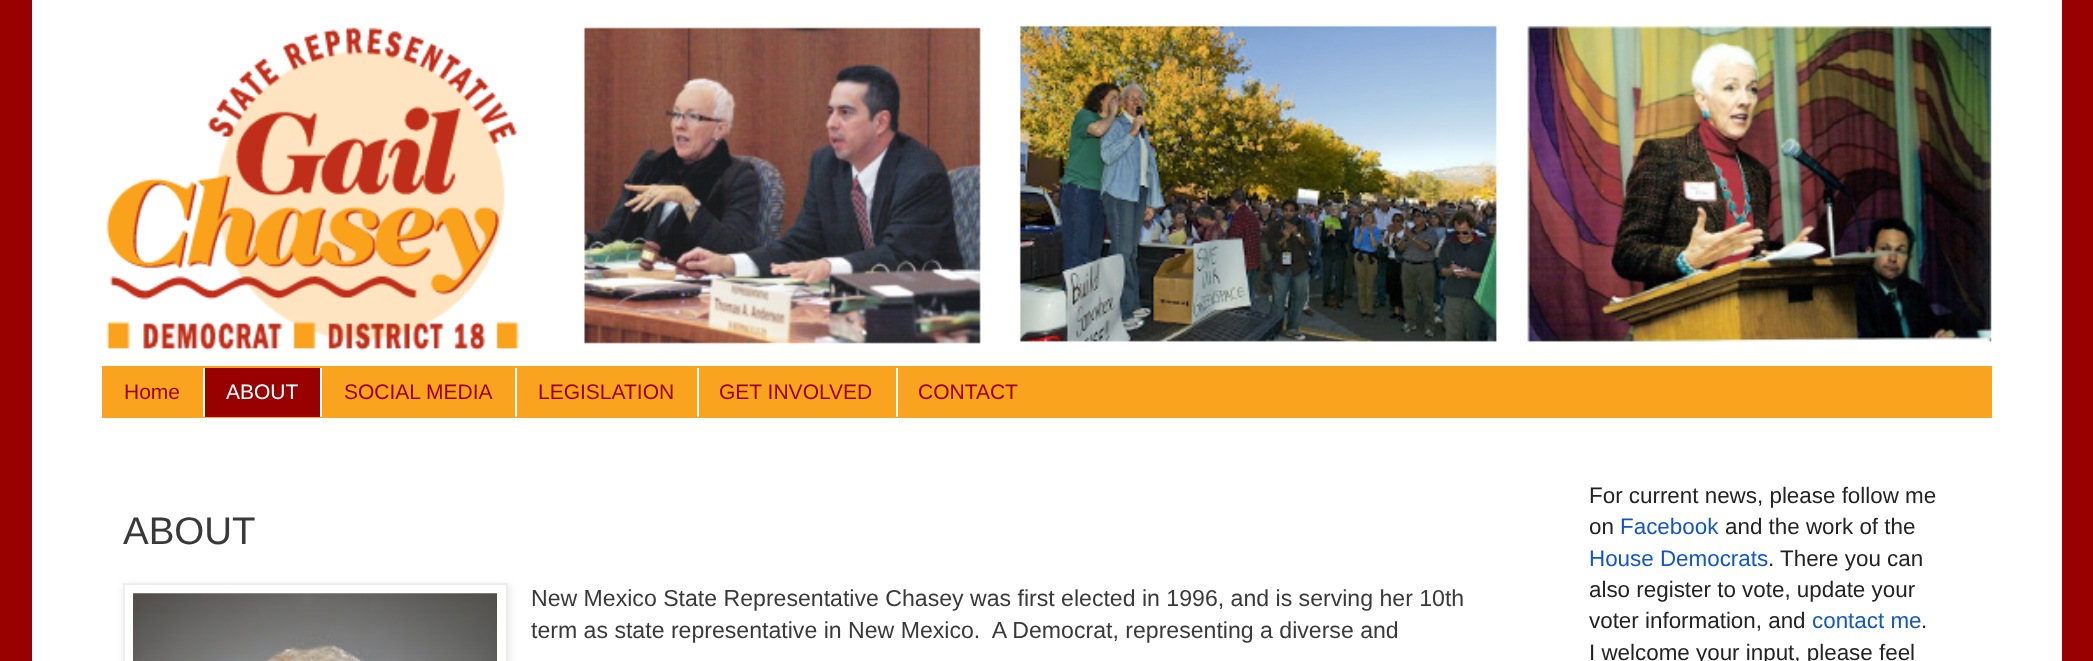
<!DOCTYPE html>
<meta charset="utf-8">
<style>body { margin: 0 } canvas { display: block }</style>
<canvas id="canvas" width="2093" height="661"></canvas>
<img id="img1" src="img_01.png" hidden>
<img id="img2" src="img_02.png" hidden>
<script>
window.onload = function () {
	const canvas = document.getElementById("canvas");
	const ctx = canvas.getContext("2d");
	ctx.miterLimit = 4;
	ctx.fontKerning = "normal";
	function txt(s, x, y) {
		ctx.fillText(s, x, y);
	}
	function fill(x, y, w, h) {
		ctx.fillRect(x, y, w, h);
	}
	function img(id, x, y, w, h) {
		ctx.drawImage(document.getElementById(id), x, y, w, h);
	}

	ctx.fillStyle = "#990000";
	fill(0, 0, 2093, 661);
	ctx.fillStyle = "#FFFFFF";
	fill(32, 0, 2030, 661);
	img("img1", 106, 25, 1886, 326);
	ctx.fillStyle = "#FAA31E";
	fill(102, 366, 1890, 52);
	ctx.fillStyle = "#990000";
	fill(205, 368, 115, 49);
	ctx.fillStyle = "#FFFFFF";
	fill(203, 368, 2, 49);
	fill(320, 368, 2, 49);
	fill(515, 368, 2, 49);
	fill(697, 368, 2, 49);
	fill(896, 368, 2, 49);
	ctx.fillStyle = "rgba(0, 0, 0, 0.1)";
	ctx.filter = "blur(4.5px)";
	ctx.beginPath();
	ctx.rect(124, 585, 385, 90);
	ctx.fill();
	ctx.filter = "none";
	ctx.fillStyle = "#FFFFFF";
	ctx.beginPath();
	ctx.rect(124, 584, 383, 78);
	ctx.fill();
	ctx.strokeStyle = "#EEEEEE";
	ctx.lineWidth = 2;
	ctx.stroke();
	img("img2", 133, 593, 364, 68);
	ctx.font = "21px Liberation Sans";
	ctx.fillStyle = "#990000";
	txt("Home", 124, 399);
	ctx.fillStyle = "#FFFFFF";
	txt("ABOUT", 226, 399);
	ctx.fillStyle = "#990000";
	txt("SOCIAL MEDIA", 344, 399);
	txt("LEGISLATION", 538, 399);
	txt("GET INVOLVED", 719, 399);
	txt("CONTACT", 918, 399);
	ctx.font = "38.5px Liberation Sans";
	ctx.fillStyle = "#393939";
	txt("ABOUT", 123, 544);
	ctx.font = "23.1px Liberation Sans";
	txt("New Mexico State Representative Chasey was first elected in 1996, and is serving her 10th", 531, 606);
	txt("term as state representative in New Mexico.  A Democrat, representing a diverse and", 531, 638);
	ctx.font = "22.4px Liberation Sans";
	ctx.fillStyle = "#222222";
	txt("For current news, please follow me", 1589, 503);
	txt("on", 1589, 534);
	ctx.fillStyle = "#1155CC";
	txt("Facebook", 1620, 534);
	ctx.fillStyle = "#222222";
	txt("and the work of the", 1725, 534);
	ctx.fillStyle = "#1155CC";
	txt("House Democrats", 1589, 566);
	ctx.fillStyle = "#222222";
	txt(". There you can", 1768, 566);
	txt("also register to vote, update your", 1589, 597);
	txt("voter information, and", 1589, 628);
	ctx.fillStyle = "#1155CC";
	txt("contact me", 1812, 628);
	ctx.fillStyle = "#222222";
	txt(".", 1921, 628);
	txt("I welcome your input, please feel", 1589, 660);
};
</script>
